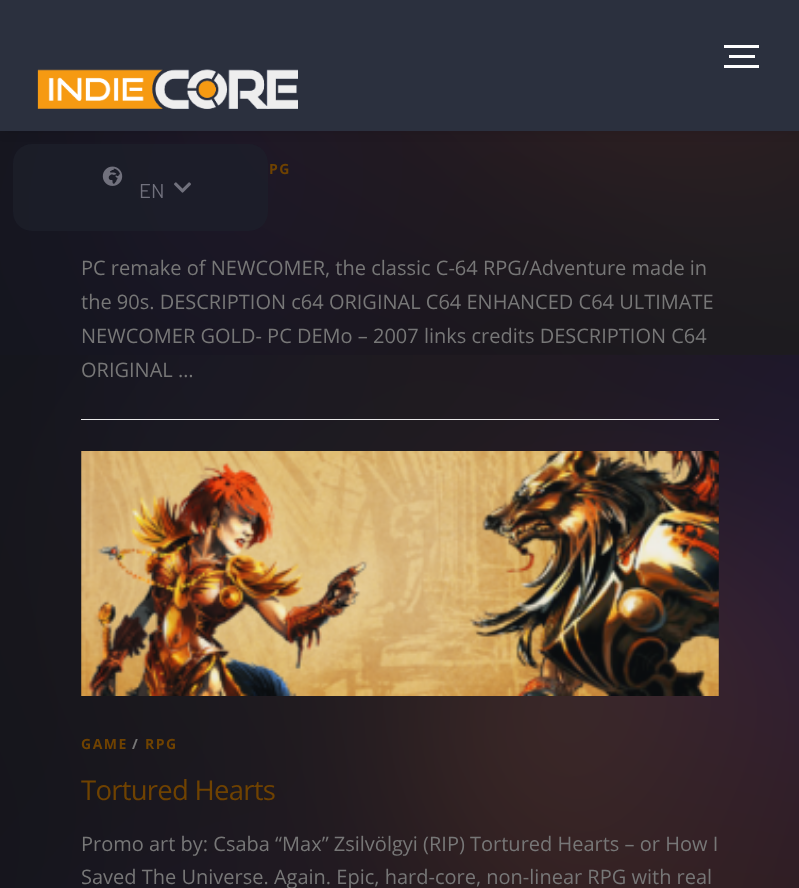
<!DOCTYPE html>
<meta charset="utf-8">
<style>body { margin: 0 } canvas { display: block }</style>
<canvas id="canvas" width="799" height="888"></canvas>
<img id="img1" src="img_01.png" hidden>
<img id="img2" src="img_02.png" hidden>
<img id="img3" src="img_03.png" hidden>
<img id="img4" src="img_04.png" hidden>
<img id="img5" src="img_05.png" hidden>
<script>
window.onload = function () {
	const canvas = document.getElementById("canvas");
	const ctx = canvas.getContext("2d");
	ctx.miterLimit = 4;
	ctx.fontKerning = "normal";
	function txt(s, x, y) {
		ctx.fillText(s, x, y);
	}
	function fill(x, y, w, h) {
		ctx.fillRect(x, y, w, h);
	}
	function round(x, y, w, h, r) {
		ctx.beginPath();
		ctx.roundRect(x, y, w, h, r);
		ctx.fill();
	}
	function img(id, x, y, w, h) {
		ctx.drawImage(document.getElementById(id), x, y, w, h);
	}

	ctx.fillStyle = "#FFFFFF";
	fill(0, 0, 799, 888);
	img("img1", 0, 131, 799, 757);
	ctx.fillStyle = "#E9E9E9";
	fill(81, 419, 638, 1);
	img("img2", 81, 451, 638, 245);
	ctx.fillStyle = "rgba(0, 0, 0, 0.12)";
	ctx.filter = "blur(6px)";
	ctx.beginPath();
	ctx.rect(0, 0, 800, 131);
	ctx.fill();
	ctx.filter = "none";
	ctx.fillStyle = "#2B303E";
	fill(0, 0, 799, 131);
	ctx.fillStyle = "#FFFFFF";
	fill(724, 45, 35, 3);
	fill(729, 55, 26, 3);
	fill(724, 65, 35, 3);
	img("img3", 37, 69, 261, 40);
	ctx.fillStyle = "rgba(29, 32, 43, 0.73)";
	round(13, 144, 255, 87, 19);
	img("img4", 102, 166, 21, 20);
	img("img5", 174, 182, 17, 11);
	ctx.letterSpacing = "1.5px";
	ctx.font = "bold 14px Open Sans";
	ctx.fillStyle = "#6F4201";
	txt("PG", 269, 174);
	ctx.letterSpacing = "0px";
	ctx.font = "20px Open Sans";
	ctx.fillStyle = "#777777";
	txt("PC remake of NEWCOMER, the classic C-64 RPG/Adventure made in", 81, 275);
	txt("the 90s. DESCRIPTION c64 ORIGINAL C64 ENHANCED C64 ULTIMATE", 81, 309);
	txt("NEWCOMER GOLD- PC DEMo – 2007 links credits DESCRIPTION C64", 81, 343);
	txt("ORIGINAL …", 81, 377);
	ctx.letterSpacing = "1.5px";
	ctx.font = "bold 14px Open Sans";
	ctx.fillStyle = "#6F4201";
	txt("GAME", 81, 749);
	ctx.fillStyle = "#777777";
	txt("/", 132, 749);
	ctx.fillStyle = "#6F4201";
	txt("RPG", 145, 749);
	ctx.letterSpacing = "-0.75px";
	ctx.font = "27.5px Open Sans";
	txt("Tortured Hearts", 81, 800);
	ctx.letterSpacing = "0px";
	ctx.font = "20px Open Sans";
	ctx.fillStyle = "#777777";
	txt("Promo art by: Csaba “Max” Zsilvölgyi (RIP) Tortured Hearts – or How I", 81, 851);
	txt("Saved The Universe. Again. Epic, hard-core, non-linear RPG with real", 81, 884);
	ctx.font = "20px Barlow";
	ctx.fillStyle = "#71717D";
	txt("EN", 139, 198);
};
</script>
